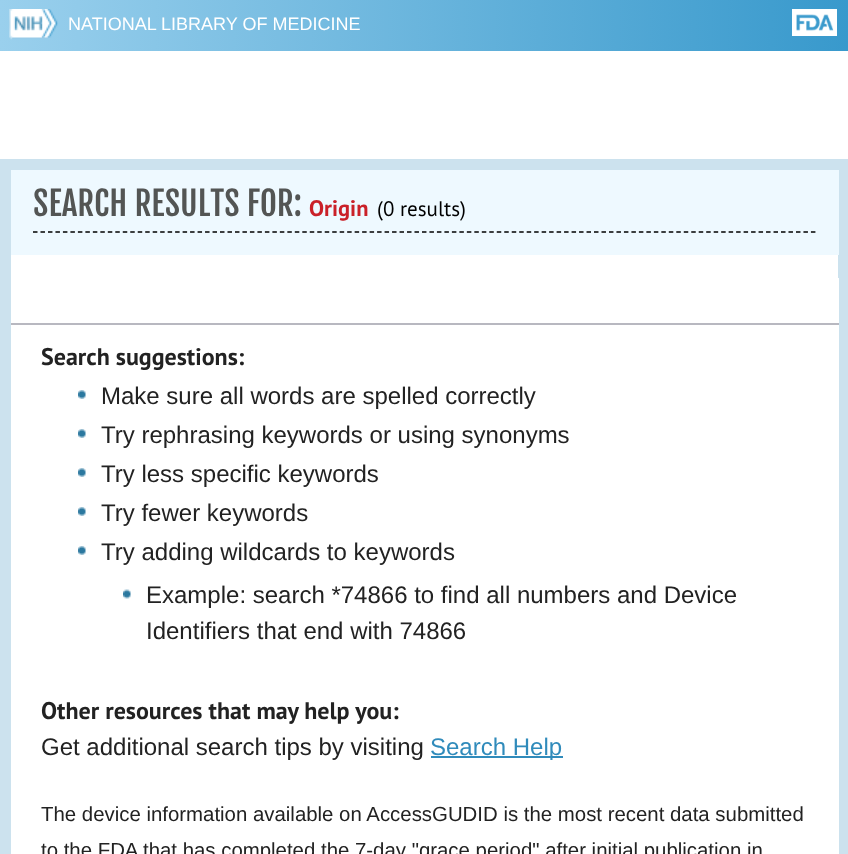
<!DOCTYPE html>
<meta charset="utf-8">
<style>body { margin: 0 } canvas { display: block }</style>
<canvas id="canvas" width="848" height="854"></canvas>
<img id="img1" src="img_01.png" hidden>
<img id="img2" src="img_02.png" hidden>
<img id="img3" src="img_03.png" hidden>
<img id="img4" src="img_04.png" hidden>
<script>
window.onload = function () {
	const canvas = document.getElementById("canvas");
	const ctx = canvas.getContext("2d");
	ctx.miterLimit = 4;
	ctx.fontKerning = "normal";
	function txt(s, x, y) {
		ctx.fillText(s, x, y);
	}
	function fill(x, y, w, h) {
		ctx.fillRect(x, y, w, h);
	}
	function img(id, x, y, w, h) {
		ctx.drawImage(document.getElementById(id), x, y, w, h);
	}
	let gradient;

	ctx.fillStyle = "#FFFFFF";
	fill(0, 0, 848, 854);
	gradient = ctx.createLinearGradient(0, 22, 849, 22);
	gradient.addColorStop(0, "#9AD0ED");
	gradient.addColorStop(1, "#3899CC");
	ctx.fillStyle = gradient;
	fill(0, 0, 848, 51);
	img("img1", 9, 9, 49, 31);
	img("img2", 792, 9, 45, 27);
	ctx.strokeStyle = "#CCE2EE";
	ctx.lineWidth = 11;
	ctx.strokeRect(5.5, 164.5, 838, 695);
	ctx.fillStyle = "#EEF9FF";
	fill(11, 170, 828, 85);
	ctx.beginPath();
	ctx.moveTo(33, 232);
	ctx.lineTo(816, 232);
	ctx.strokeStyle = "#000000";
	ctx.lineWidth = 1.5;
	ctx.setLineDash([4.5, 2.98]);
	ctx.stroke();
	ctx.fillStyle = "#FFFFFF";
	fill(838, 278, 1, 576);
	ctx.fillStyle = "#B8B8C0";
	fill(11, 323, 828, 2);
	img("img3", 78, 390, 8, 9);
	img("img3", 78, 429, 8, 9);
	img("img3", 78, 468, 8, 9);
	img("img3", 78, 507, 8, 9);
	img("img3", 78, 546, 8, 9);
	img("img4", 123, 589, 8, 10);
	ctx.fillStyle = "#308BBB";
	fill(431, 756, 132, 2);
	ctx.font = "18px Liberation Sans";
	ctx.fillStyle = "#FFFFFF";
	txt("NATIONAL LIBRARY OF MEDICINE", 68, 30);
	ctx.font = "33px Fjalla One";
	ctx.fillStyle = "#535554";
	txt("SEARCH RESULTS FOR:", 33, 216);
	ctx.font = "bold 22.5px PT Sans";
	ctx.fillStyle = "#CA2129";
	txt("Origin", 309, 216);
	ctx.font = "21px PT Sans";
	ctx.fillStyle = "#000000";
	txt("(0 results)", 377, 216);
	ctx.font = "bold 24px PT Sans";
	ctx.fillStyle = "#222222";
	txt("Search suggestions:", 41, 365);
	ctx.font = "24px Liberation Sans";
	txt("Make sure all words are spelled correctly", 101, 404);
	txt("Try rephrasing keywords or using synonyms", 101, 443);
	txt("Try less specific keywords", 101, 482);
	txt("Try fewer keywords", 101, 521);
	txt("Try adding wildcards to keywords", 101, 560);
	txt("Example: search *74866 to find all numbers and Device", 146, 603);
	txt("Identifiers that end with 74866", 146, 639);
	ctx.font = "bold 24px PT Sans";
	txt("Other resources that may help you:", 41, 719);
	ctx.font = "24px Liberation Sans";
	txt("Get additional search tips by visiting", 41, 755);
	ctx.fillStyle = "#308BBB";
	txt("Search Help", 430, 755);
	ctx.font = "20.4px Liberation Sans";
	ctx.fillStyle = "#222222";
	txt("The device information available on AccessGUDID is the most recent data submitted", 41, 821);
	txt("to the FDA that has completed the 7-day \"grace period\" after initial publication in", 41, 857);
};
</script>
